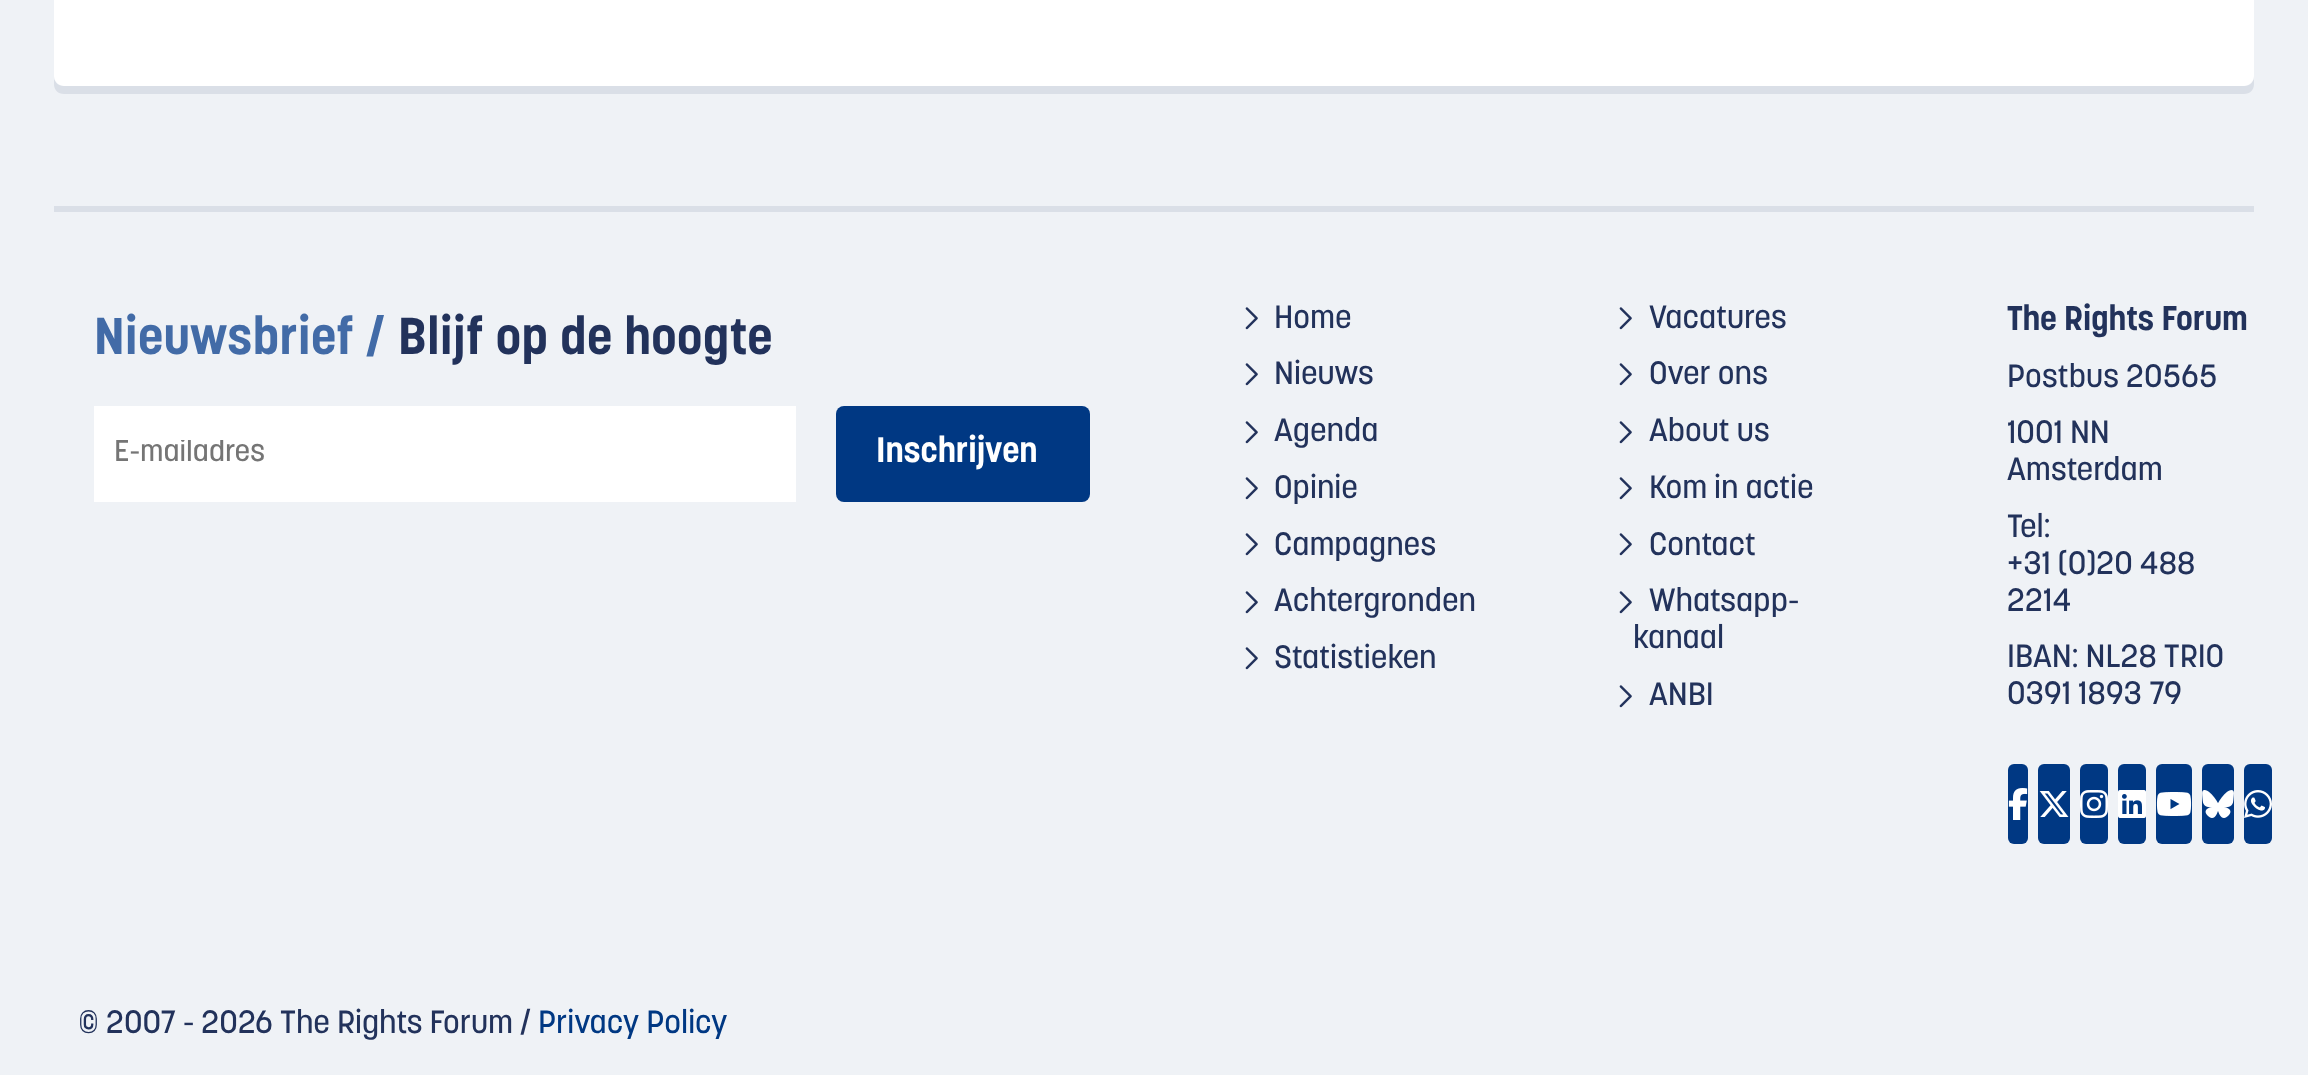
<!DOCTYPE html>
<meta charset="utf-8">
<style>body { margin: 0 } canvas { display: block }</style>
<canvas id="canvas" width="2308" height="1075"></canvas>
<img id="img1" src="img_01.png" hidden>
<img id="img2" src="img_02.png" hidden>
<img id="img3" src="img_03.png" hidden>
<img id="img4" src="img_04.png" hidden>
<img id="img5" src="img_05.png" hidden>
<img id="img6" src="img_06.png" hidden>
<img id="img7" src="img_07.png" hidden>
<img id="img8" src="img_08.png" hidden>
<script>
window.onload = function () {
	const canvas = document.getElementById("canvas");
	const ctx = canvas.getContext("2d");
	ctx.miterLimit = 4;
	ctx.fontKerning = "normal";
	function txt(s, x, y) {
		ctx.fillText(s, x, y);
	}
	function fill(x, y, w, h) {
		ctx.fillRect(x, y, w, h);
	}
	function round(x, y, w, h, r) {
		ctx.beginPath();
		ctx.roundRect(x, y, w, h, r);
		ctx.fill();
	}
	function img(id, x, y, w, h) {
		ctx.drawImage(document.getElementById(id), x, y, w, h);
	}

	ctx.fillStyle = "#EFF2F6";
	fill(0, 0, 2308, 1075);
	ctx.fillStyle = "#DADFE7";
	ctx.beginPath();
	ctx.moveTo(54, 76);
	ctx.lineTo(54, 84);
	ctx.bezierCurveTo(54, 90, 58, 94, 64, 94);
	ctx.lineTo(2244, 94);
	ctx.bezierCurveTo(2250, 94, 2254, 90, 2254, 84);
	ctx.lineTo(2254, 76);
	ctx.bezierCurveTo(2254, 82, 2250, 86, 2244, 86);
	ctx.lineTo(64, 86);
	ctx.bezierCurveTo(58, 86, 54, 82, 54, 76);
	ctx.closePath();
	ctx.fill();
	ctx.fillStyle = "#FFFFFF";
	round(54, -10, 2200, 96, 10);
	ctx.fillStyle = "#DADFE7";
	fill(54, 206, 2200, 6);
	ctx.fillStyle = "#FFFFFF";
	fill(94, 406, 702, 96);
	ctx.fillStyle = "#003883";
	round(836, 406, 254, 96, 8);
	img("img1", 1245, 307, 13, 23);
	img("img1", 1245, 363, 13, 23);
	img("img1", 1245, 421, 13, 23);
	img("img1", 1245, 477, 13, 23);
	img("img1", 1245, 533, 13, 23);
	img("img1", 1245, 591, 13, 23);
	img("img1", 1245, 647, 13, 23);
	img("img1", 1619, 307, 13, 23);
	img("img1", 1619, 363, 13, 23);
	img("img1", 1619, 421, 13, 23);
	img("img1", 1619, 477, 13, 23);
	img("img1", 1619, 533, 13, 23);
	img("img1", 1619, 591, 13, 23);
	img("img1", 1619, 685, 13, 23);
	round(2008, 764, 20, 80, 6);
	img("img2", 2008, 788, 20, 32);
	round(2038, 764, 32, 80, 6);
	img("img3", 2039, 791, 30, 26);
	round(2080, 764, 28, 80, 6);
	img("img4", 2080, 790, 28, 28);
	round(2118, 764, 28, 80, 6);
	img("img5", 2118, 790, 28, 28);
	round(2156, 764, 36, 80, 6);
	img("img6", 2156, 792, 36, 24);
	round(2202, 764, 32, 80, 6);
	img("img7", 2202, 790, 32, 28);
	round(2244, 764, 28, 80, 6);
	img("img8", 2244, 790, 28, 28);
	ctx.letterSpacing = "0.5px";
	ctx.font = "bold 51.25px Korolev";
	ctx.fillStyle = "#426BA7";
	txt("Nieuwsbrief /", 94, 354);
	ctx.fillStyle = "#22325B";
	txt("Blijf op de hoogte", 398, 354);
	ctx.save();
	ctx.beginPath();
	ctx.rect(114, 440, 662, 30);
	ctx.clip();
	ctx.letterSpacing = "0px";
	ctx.font = "500 30px Korolev";
	ctx.fillStyle = "#757575";
	txt("E-mailadres", 114, 461);
	ctx.restore();
	ctx.letterSpacing = "0px";
	ctx.font = "bold 35px Korolev";
	ctx.fillStyle = "#FFFFFF";
	txt("Inschrijven", 876, 462);
	ctx.font = "500 32px Korolev";
	ctx.fillStyle = "#22325B";
	txt("Home", 1274, 328);
	txt("Nieuws", 1274, 384);
	txt("Agenda", 1274, 441);
	txt("Opinie", 1274, 498);
	txt("Campagnes", 1274, 555);
	txt("Achtergronden", 1274, 611);
	txt("Statistieken", 1274, 668);
	txt("Vacatures", 1649, 328);
	txt("Over ons", 1649, 384);
	txt("About us", 1649, 441);
	txt("Kom in actie", 1649, 498);
	txt("Contact", 1649, 555);
	txt("Whatsapp-", 1649, 611);
	txt("kanaal", 1633, 648);
	txt("ANBI", 1649, 705);
	ctx.font = "bold 34px Korolev";
	txt("The Rights Forum", 2007, 330);
	ctx.font = "500 32px Korolev";
	txt("Postbus 20565", 2007, 387);
	txt("1001 NN", 2007, 443);
	txt("Amsterdam", 2007, 480);
	txt("Tel:", 2007, 537);
	txt("+31 (0)20 488", 2007, 574);
	txt("2214", 2007, 611);
	txt("IBAN: NL28 TRIO", 2007, 667);
	txt("0391 1893 79", 2007, 704);
	txt("© 2007 - 2026 The Rights Forum /", 78, 1033);
	ctx.fillStyle = "#003883";
	txt("Privacy Policy", 538, 1033);
};
</script>
